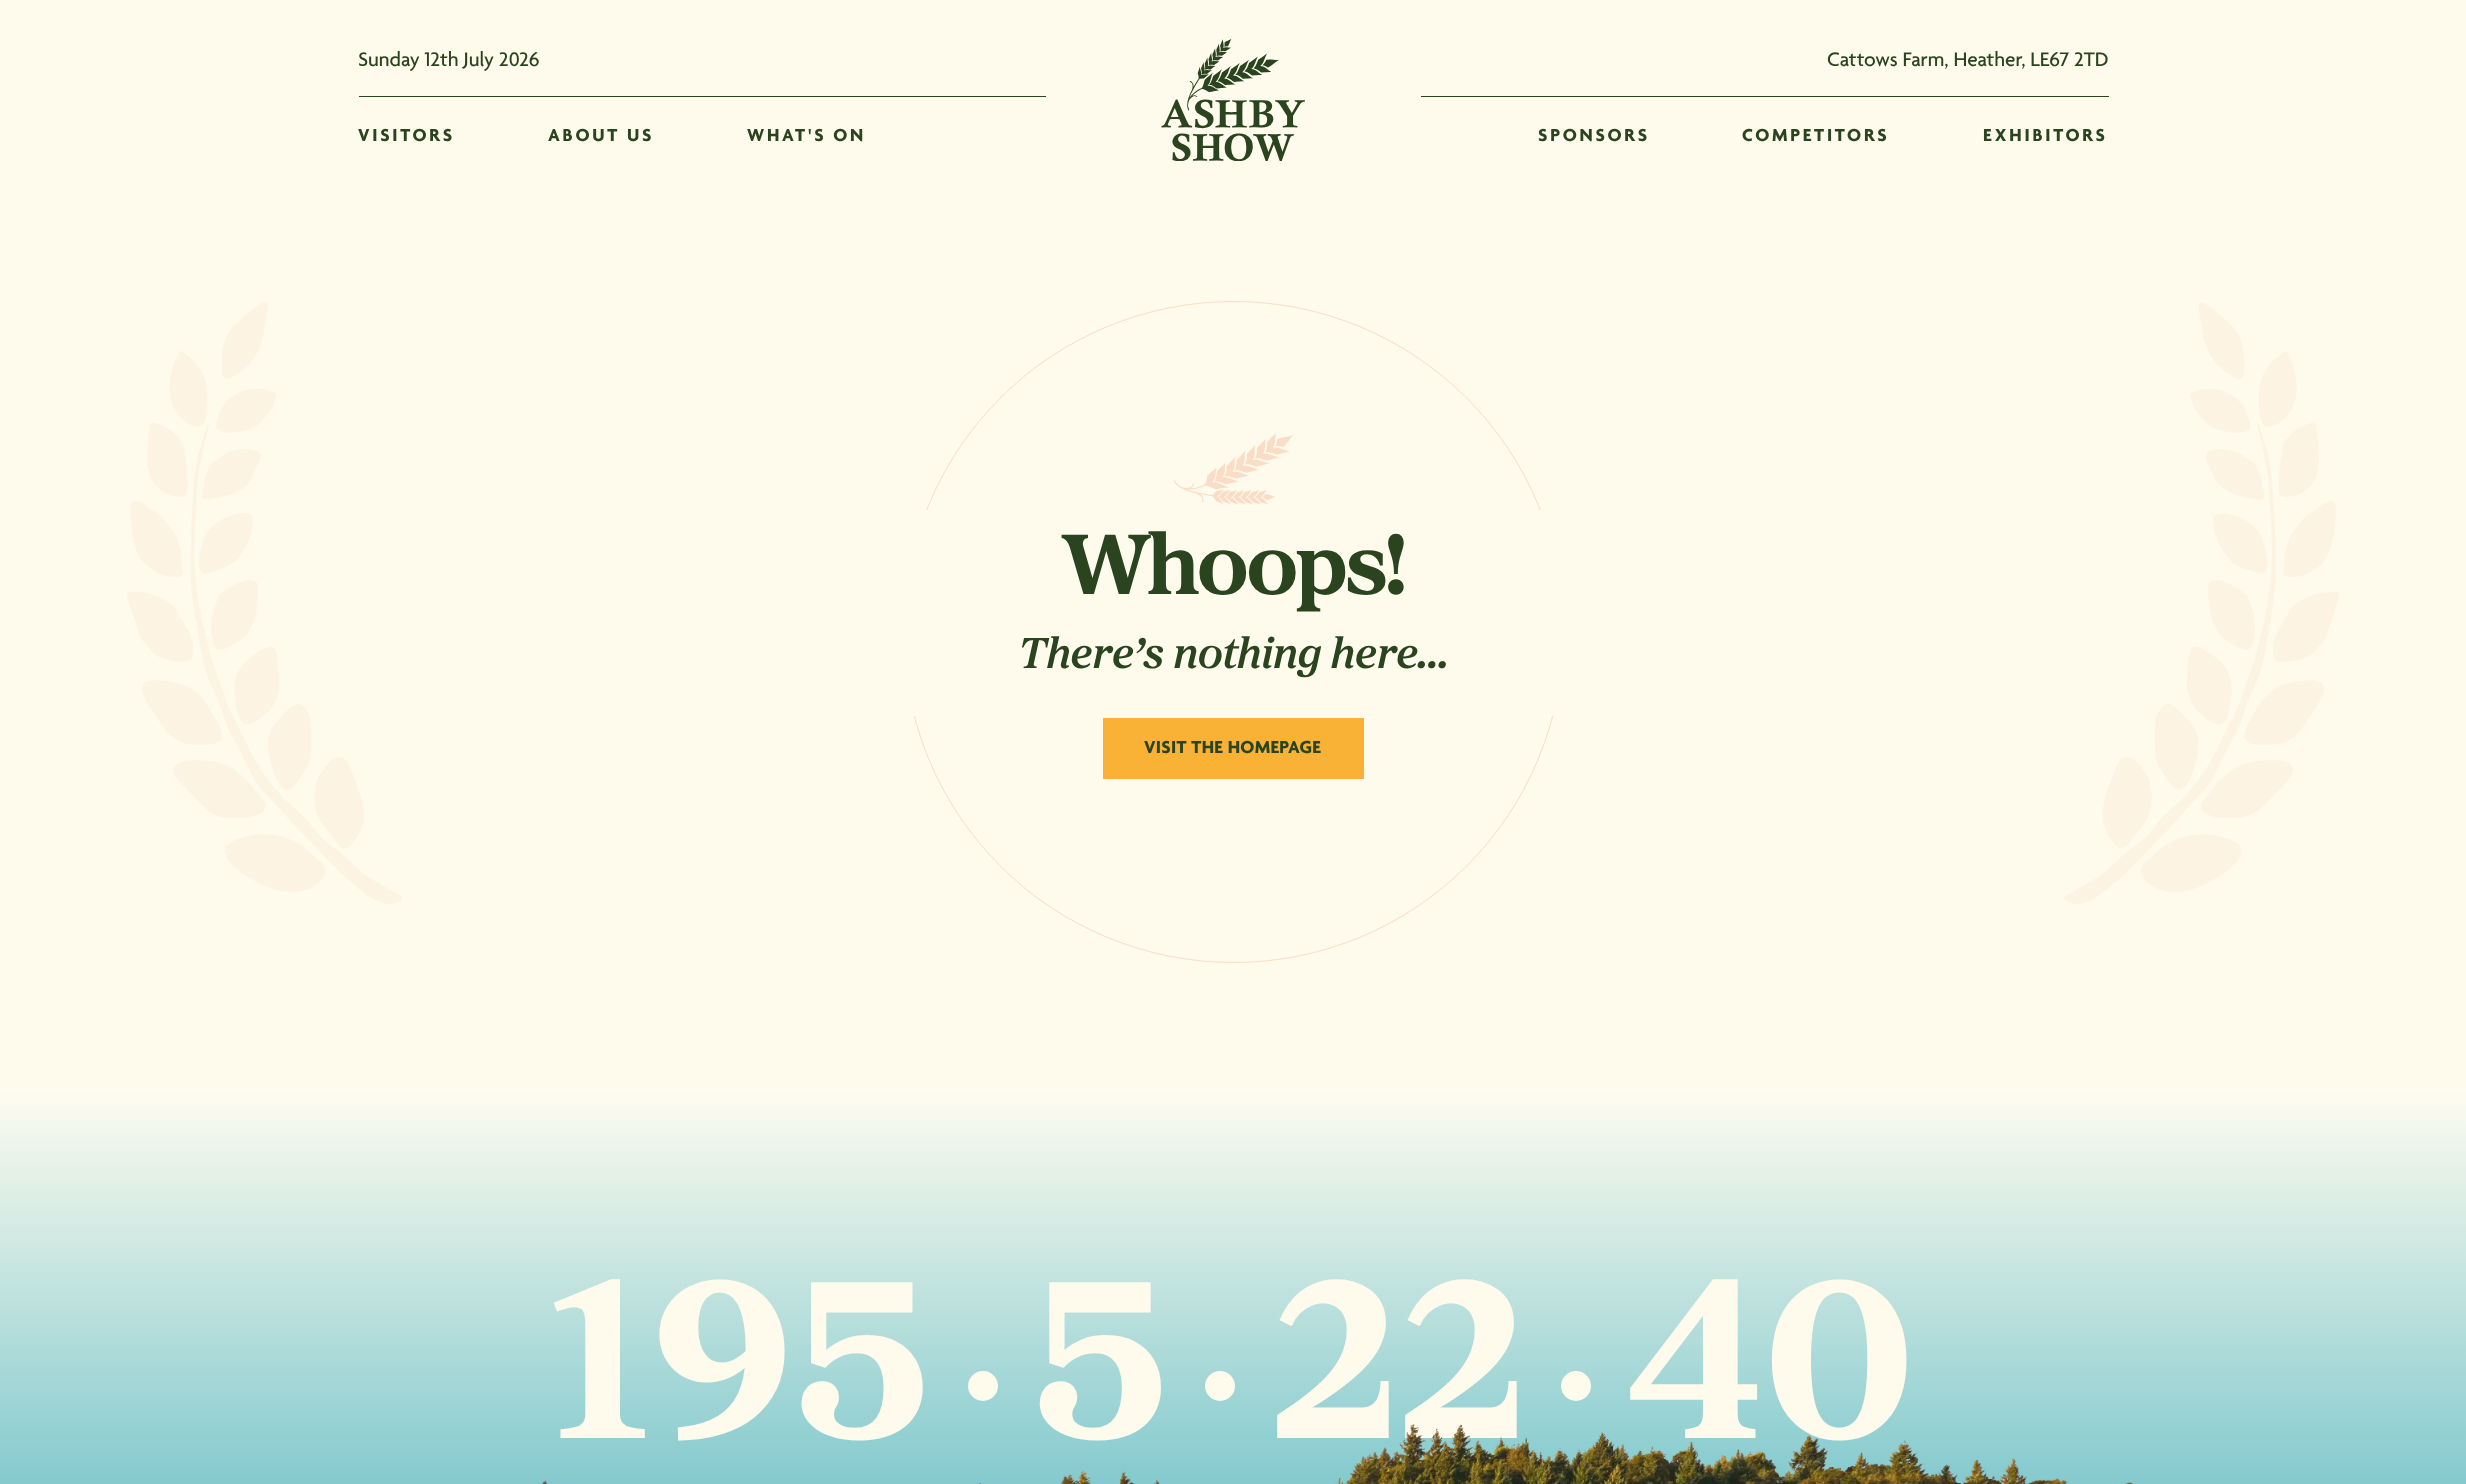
<!DOCTYPE html>
<meta charset="utf-8">
<style>body { margin: 0 } canvas { display: block }</style>
<canvas id="canvas" width="2466" height="1484"></canvas>
<img id="img1" src="img_01.png" hidden>
<img id="img2" src="img_02.png" hidden>
<img id="img3" src="img_03.png" hidden>
<img id="img4" src="img_04.png" hidden>
<img id="img5" src="img_05.png" hidden>
<script>
window.onload = function () {
	const canvas = document.getElementById("canvas");
	const ctx = canvas.getContext("2d");
	ctx.miterLimit = 4;
	ctx.fontKerning = "normal";
	function txt(s, x, y) {
		ctx.fillText(s, x, y);
	}
	function fill(x, y, w, h) {
		ctx.fillRect(x, y, w, h);
	}
	function img(id, x, y, w, h) {
		ctx.drawImage(document.getElementById(id), x, y, w, h);
	}
	let gradient;

	ctx.fillStyle = "#FEFAEC";
	fill(0, 0, 2466, 1484);
	ctx.fillStyle = "#2A441F";
	fill(359, 96, 687, 1);
	img("img1", 1161, 39, 144, 122);
	fill(1421, 96, 688, 1);
	img("img2", 2064, 302, 275, 602);
	img("img3", 127, 302, 275, 602);
	ctx.beginPath();
	ctx.roundRect(903.5, 301.5, 660, 661, 330);
	ctx.strokeStyle = "#F9DDC7";
	ctx.stroke();
	img("img4", 1173, 433, 120, 72);
	ctx.fillStyle = "#FEFAEC";
	fill(903, 510, 661, 206);
	ctx.fillStyle = "#F9B236";
	fill(1103, 718, 261, 61);
	gradient = ctx.createLinearGradient(1233, 1087, 1233, 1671);
	gradient.addColorStop(0, "#FFFCEF");
	gradient.addColorStop(1, "#4AB2BF");
	ctx.fillStyle = gradient;
	fill(0, 1088, 2466, 396);
	ctx.fillStyle = "#FEFAEC";
	ctx.beginPath();
	ctx.arc(983, 1386, 15, 0, Math.PI * 2);
	ctx.fill();
	ctx.beginPath();
	ctx.arc(1220, 1386, 15, 0, Math.PI * 2);
	ctx.fill();
	ctx.beginPath();
	ctx.arc(1576, 1386, 15, 0, Math.PI * 2);
	ctx.fill();
	ctx.font = "500 21.25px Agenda";
	ctx.fillStyle = "#2A441F";
	txt("Sunday 12th July 2026", 358, 66);
	ctx.letterSpacing = "2.75px";
	ctx.font = "bold 18.75px Agenda";
	txt("VISITORS", 358, 141);
	txt("ABOUT US", 548, 141);
	txt("WHAT'S ON", 747, 141);
	ctx.letterSpacing = "0px";
	ctx.font = "500 21.25px Agenda";
	txt("Cattows Farm, Heather, LE67 2TD", 1827, 66);
	ctx.letterSpacing = "2.75px";
	ctx.font = "bold 18.75px Agenda";
	txt("SPONSORS", 1538, 141);
	txt("COMPETITORS", 1742, 141);
	txt("EXHIBITORS", 1983, 141);
	ctx.letterSpacing = "-3.25px";
	ctx.font = "bold 89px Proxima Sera";
	txt("Whoops!", 1063, 594);
	ctx.letterSpacing = "-0.9px";
	ctx.font = "italic 600 45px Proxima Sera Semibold";
	txt("There’s nothing here…", 1018, 668);
	ctx.letterSpacing = "0.3px";
	ctx.font = "bold 18.75px Agenda";
	txt("VISIT THE HOMEPAGE", 1144, 753);
	ctx.letterSpacing = "0px";
	ctx.font = "bold 234px Proxima Sera";
	ctx.fillStyle = "#FEFAEC";
	txt("195", 550, 1438);
	txt("5", 1032, 1438);
	txt("22", 1270, 1438);
	txt("40", 1626, 1438);
	img("img5", 542, 1424, 1593, 60);
};
</script>
